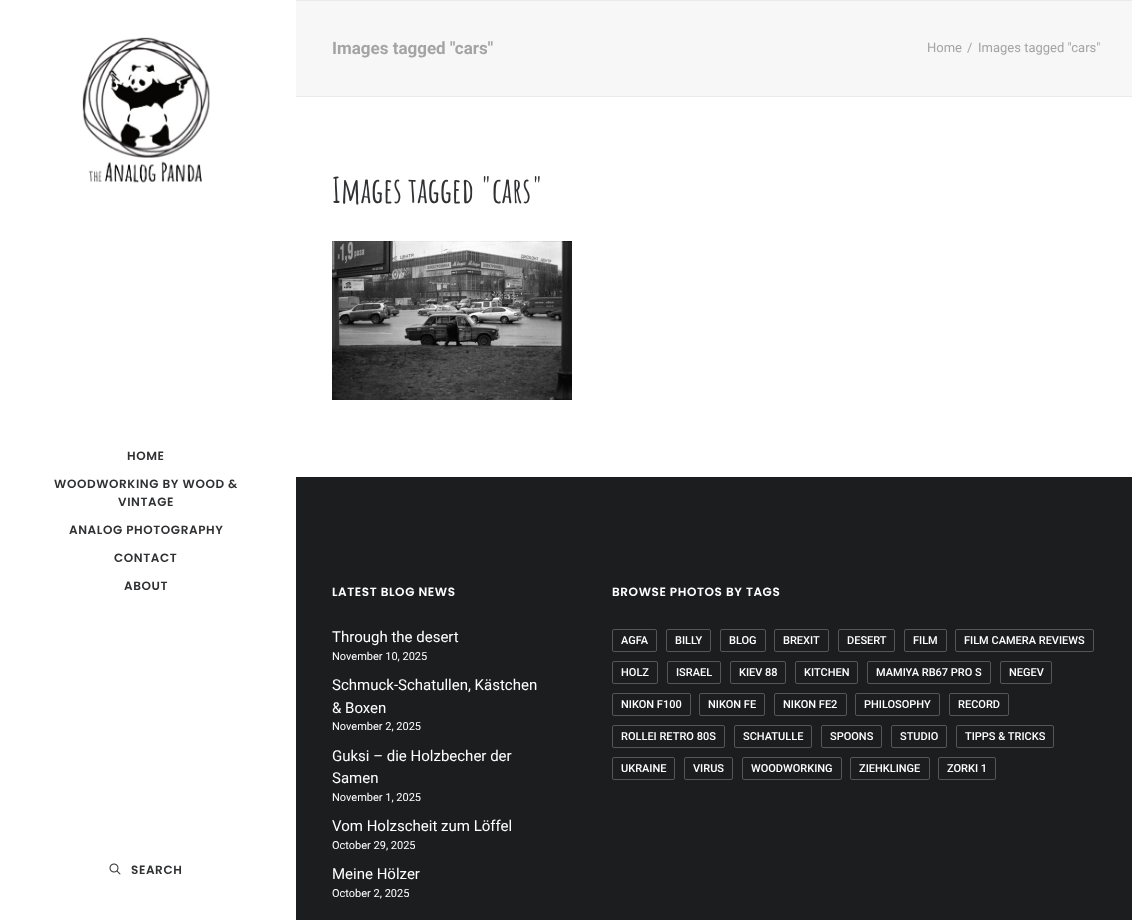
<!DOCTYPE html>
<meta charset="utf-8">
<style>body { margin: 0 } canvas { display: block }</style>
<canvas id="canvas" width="1132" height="920"></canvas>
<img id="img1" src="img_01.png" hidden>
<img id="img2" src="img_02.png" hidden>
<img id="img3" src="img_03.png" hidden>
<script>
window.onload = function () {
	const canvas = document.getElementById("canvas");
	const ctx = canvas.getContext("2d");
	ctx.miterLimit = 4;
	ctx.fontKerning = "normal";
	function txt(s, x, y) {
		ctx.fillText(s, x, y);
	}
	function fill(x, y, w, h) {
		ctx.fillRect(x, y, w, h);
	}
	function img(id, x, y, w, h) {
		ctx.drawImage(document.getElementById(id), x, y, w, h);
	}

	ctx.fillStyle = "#F7F7F7";
	fill(0, 0, 1132, 920);
	ctx.fillStyle = "#FFFFFF";
	fill(0, 0, 296, 920);
	img("img1", 82, 37, 128, 146);
	img("img2", 109, 863, 12, 12);
	ctx.fillStyle = "#EAEAEA";
	fill(296, 0, 836, 1);
	fill(296, 96, 836, 1);
	ctx.fillStyle = "#FFFFFF";
	fill(296, 97, 836, 380);
	img("img3", 332, 241, 240, 159);
	ctx.fillStyle = "#1B1D1F";
	fill(296, 477, 836, 443);
	ctx.beginPath();
	ctx.roundRect(612.5, 629.5, 44, 22, 1.5);
	ctx.strokeStyle = "#545657";
	ctx.stroke();
	ctx.beginPath();
	ctx.roundRect(666.5, 629.5, 44, 22, 1.5);
	ctx.stroke();
	ctx.beginPath();
	ctx.roundRect(720.5, 629.5, 45, 22, 1.5);
	ctx.stroke();
	ctx.beginPath();
	ctx.roundRect(774.5, 629.5, 54, 22, 1.5);
	ctx.stroke();
	ctx.beginPath();
	ctx.roundRect(838.5, 629.5, 56, 22, 1.5);
	ctx.stroke();
	ctx.beginPath();
	ctx.roundRect(904.5, 629.5, 42, 22, 1.5);
	ctx.stroke();
	ctx.beginPath();
	ctx.roundRect(955.5, 629.5, 138, 22, 1.5);
	ctx.stroke();
	ctx.beginPath();
	ctx.roundRect(612.5, 661.5, 45, 22, 1.5);
	ctx.stroke();
	ctx.beginPath();
	ctx.roundRect(667.5, 661.5, 53, 22, 1.5);
	ctx.stroke();
	ctx.beginPath();
	ctx.roundRect(730.5, 661.5, 55, 22, 1.5);
	ctx.stroke();
	ctx.beginPath();
	ctx.roundRect(795.5, 661.5, 62, 22, 1.5);
	ctx.stroke();
	ctx.beginPath();
	ctx.roundRect(867.5, 661.5, 123, 22, 1.5);
	ctx.stroke();
	ctx.beginPath();
	ctx.roundRect(1000.5, 661.5, 51, 22, 1.5);
	ctx.stroke();
	ctx.beginPath();
	ctx.roundRect(612.5, 693.5, 78, 22, 1.5);
	ctx.stroke();
	ctx.beginPath();
	ctx.roundRect(699.5, 693.5, 65, 22, 1.5);
	ctx.stroke();
	ctx.beginPath();
	ctx.roundRect(774.5, 693.5, 72, 22, 1.5);
	ctx.stroke();
	ctx.beginPath();
	ctx.roundRect(855.5, 693.5, 84, 22, 1.5);
	ctx.stroke();
	ctx.beginPath();
	ctx.roundRect(949.5, 693.5, 59, 22, 1.5);
	ctx.stroke();
	ctx.beginPath();
	ctx.roundRect(612.5, 725.5, 112, 22, 1.5);
	ctx.stroke();
	ctx.beginPath();
	ctx.roundRect(734.5, 725.5, 77, 22, 1.5);
	ctx.stroke();
	ctx.beginPath();
	ctx.roundRect(821.5, 725.5, 60, 22, 1.5);
	ctx.stroke();
	ctx.beginPath();
	ctx.roundRect(891.5, 725.5, 55, 22, 1.5);
	ctx.stroke();
	ctx.beginPath();
	ctx.roundRect(956.5, 725.5, 97, 22, 1.5);
	ctx.stroke();
	ctx.beginPath();
	ctx.roundRect(612.5, 757.5, 62, 22, 1.5);
	ctx.stroke();
	ctx.beginPath();
	ctx.roundRect(684.5, 757.5, 48, 22, 1.5);
	ctx.stroke();
	ctx.beginPath();
	ctx.roundRect(742.5, 757.5, 99, 22, 1.5);
	ctx.stroke();
	ctx.beginPath();
	ctx.roundRect(850.5, 757.5, 79, 22, 1.5);
	ctx.stroke();
	ctx.beginPath();
	ctx.roundRect(938.5, 757.5, 57, 22, 1.5);
	ctx.stroke();
	ctx.letterSpacing = "0.6px";
	ctx.font = "600 12px Poppins";
	ctx.fillStyle = "#303133";
	txt("HOME", 127, 460);
	txt("WOODWORKING BY WOOD &", 54, 488);
	txt("VINTAGE", 118, 506);
	txt("ANALOG PHOTOGRAPHY", 69, 534);
	txt("CONTACT", 114, 562);
	txt("ABOUT", 124, 590);
	txt("SEARCH", 131, 874);
	ctx.letterSpacing = "0px";
	ctx.font = "bold 17px Roboto";
	ctx.fillStyle = "#A4A4A4";
	txt("Images tagged \"cars\"", 332, 54);
	ctx.font = "13px Roboto";
	txt("Home", 927, 52);
	txt("/", 967, 52);
	txt("Images tagged \"cars\"", 978, 52);
	ctx.font = "bold 35px Amatic SC";
	ctx.fillStyle = "#303133";
	txt("Images tagged \"cars\"", 332, 203);
	ctx.letterSpacing = "0.6px";
	ctx.font = "600 12px Poppins";
	ctx.fillStyle = "#FFFFFF";
	txt("LATEST BLOG NEWS", 332, 596);
	ctx.letterSpacing = "0px";
	ctx.font = "15px Roboto";
	txt("Through the desert", 332, 642);
	ctx.font = "11px Roboto";
	txt("November 10, 2025", 332, 660);
	ctx.font = "15px Roboto";
	txt("Schmuck-Schatullen, Kästchen", 332, 690);
	txt("& Boxen", 332, 713);
	ctx.font = "11px Roboto";
	txt("November 2, 2025", 332, 730);
	ctx.font = "15px Roboto";
	txt("Guksi – die Holzbecher der", 332, 761);
	txt("Samen", 332, 783);
	ctx.font = "11px Roboto";
	txt("November 1, 2025", 332, 801);
	ctx.font = "15px Roboto";
	txt("Vom Holzscheit zum Löffel", 332, 831);
	ctx.font = "11px Roboto";
	txt("October 29, 2025", 332, 849);
	ctx.font = "15px Roboto";
	txt("Meine Hölzer", 332, 879);
	ctx.font = "11px Roboto";
	txt("October 2, 2025", 332, 897);
	ctx.letterSpacing = "0.6px";
	ctx.font = "600 12px Poppins";
	txt("BROWSE PHOTOS BY TAGS", 612, 596);
	ctx.letterSpacing = "0px";
	ctx.font = "500 11px Roboto";
	txt("AGFA", 621, 644);
	txt("BILLY", 675, 644);
	txt("BLOG", 729, 644);
	txt("BREXIT", 783, 644);
	txt("DESERT", 847, 644);
	txt("FILM", 913, 644);
	txt("FILM CAMERA REVIEWS", 964, 644);
	txt("HOLZ", 621, 676);
	txt("ISRAEL", 676, 676);
	txt("KIEV 88", 739, 676);
	txt("KITCHEN", 804, 676);
	txt("MAMIYA RB67 PRO S", 876, 676);
	txt("NEGEV", 1009, 676);
	txt("NIKON F100", 621, 708);
	txt("NIKON FE", 708, 708);
	txt("NIKON FE2", 783, 708);
	txt("PHILOSOPHY", 864, 708);
	txt("RECORD", 958, 708);
	txt("ROLLEI RETRO 80S", 621, 740);
	txt("SCHATULLE", 743, 740);
	txt("SPOONS", 830, 740);
	txt("STUDIO", 900, 740);
	txt("TIPPS & TRICKS", 965, 740);
	txt("UKRAINE", 621, 772);
	txt("VIRUS", 693, 772);
	txt("WOODWORKING", 751, 772);
	txt("ZIEHKLINGE", 859, 772);
	txt("ZORKI 1", 947, 772);
};
</script>
